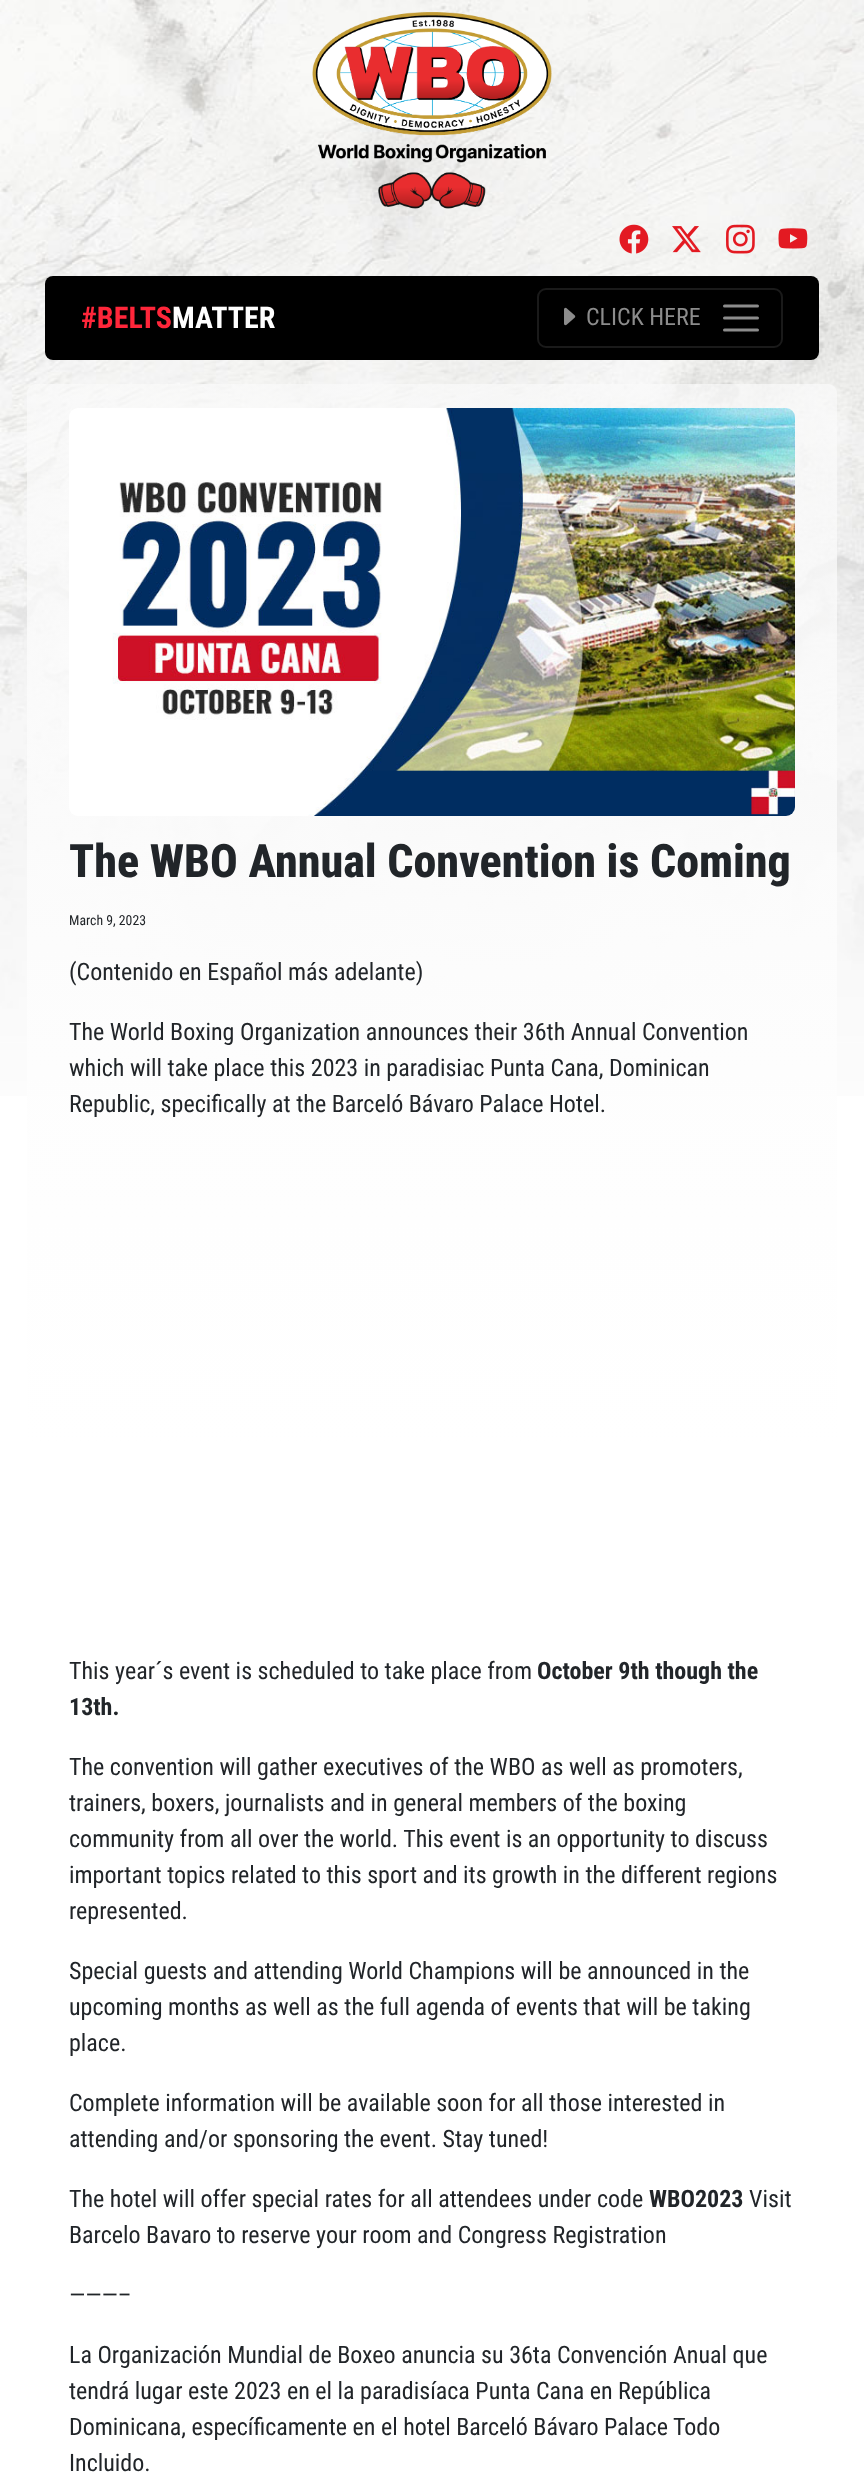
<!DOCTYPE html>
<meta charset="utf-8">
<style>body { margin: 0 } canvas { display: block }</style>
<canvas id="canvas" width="864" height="2478"></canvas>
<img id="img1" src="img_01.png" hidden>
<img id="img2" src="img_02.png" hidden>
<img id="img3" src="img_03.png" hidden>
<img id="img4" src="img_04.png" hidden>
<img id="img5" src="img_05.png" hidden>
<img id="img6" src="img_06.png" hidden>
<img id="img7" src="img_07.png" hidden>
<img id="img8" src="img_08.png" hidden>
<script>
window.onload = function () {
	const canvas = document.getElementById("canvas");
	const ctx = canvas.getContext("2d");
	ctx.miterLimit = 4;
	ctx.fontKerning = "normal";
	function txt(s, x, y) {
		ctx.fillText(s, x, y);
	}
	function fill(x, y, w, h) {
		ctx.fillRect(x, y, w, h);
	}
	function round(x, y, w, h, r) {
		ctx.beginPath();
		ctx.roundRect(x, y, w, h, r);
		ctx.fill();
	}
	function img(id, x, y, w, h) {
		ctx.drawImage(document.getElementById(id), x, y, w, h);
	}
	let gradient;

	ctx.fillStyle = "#FFFFFF";
	fill(0, 0, 864, 2478);
	img("img1", 0, 0, 864, 1096);
	img("img2", 312, 12, 240, 197);
	img("img3", 619, 224, 30, 30);
	img("img4", 672, 226, 29, 27);
	img("img5", 726, 224, 29, 30);
	img("img6", 778, 228, 30, 21);
	ctx.fillStyle = "#000000";
	round(45, 276, 774, 84, 8);
	ctx.beginPath();
	ctx.roundRect(538, 289, 244, 58, 8);
	ctx.strokeStyle = "#1A1A1A";
	ctx.lineWidth = 2;
	ctx.stroke();
	img("img7", 564, 307, 12, 19);
	ctx.beginPath();
	ctx.moveTo(724.5, 306);
	ctx.lineTo(757.5, 306);
	ctx.moveTo(724.5, 318);
	ctx.lineTo(757.5, 318);
	ctx.moveTo(724.5, 330);
	ctx.lineTo(757.5, 330);
	ctx.strokeStyle = "#8C8C8C";
	ctx.lineWidth = 3;
	ctx.lineCap = "round";
	ctx.stroke();
	gradient = ctx.createLinearGradient(432, 384, 432, 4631);
	gradient.addColorStop(0, "rgba(250, 250, 250, 0.7)");
	gradient.addColorStop(0.25, "#FFFFFF");
	gradient.addColorStop(1, "#FFFFFF");
	ctx.fillStyle = gradient;
	round(27, 384, 810, 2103, 9);
	img("img8", 69, 408, 726, 408);
	ctx.font = "bold 30px Roboto Condensed";
	ctx.fillStyle = "#FF263A";
	txt("#BELTS", 81, 328);
	ctx.fillStyle = "#FFFFFF";
	txt("MATTER", 172, 328);
	ctx.font = "24px Roboto Condensed";
	ctx.fillStyle = "#8C8C8C";
	txt("CLICK HERE", 586, 325);
	ctx.font = "800 46px Roboto Condensed";
	ctx.fillStyle = "#212529";
	txt("The WBO Annual Convention is Coming", 69, 877);
	ctx.font = "13.75px Roboto Condensed";
	txt("March 9, 2023", 69, 925);
	ctx.font = "24px Roboto Condensed";
	txt("(Contenido en Español más adelante)", 69, 980);
	txt("The World Boxing Organization announces their 36th Annual Convention", 69, 1040);
	txt("which will take place this 2023 in paradisiac Punta Cana, Dominican", 69, 1076);
	txt("Republic, specifically at the Barceló Bávaro Palace Hotel.", 69, 1112);
	txt("This year´s event is scheduled to take place from", 69, 1679);
	ctx.font = "bold 24px Roboto Condensed";
	txt("October 9th though the", 537, 1679);
	txt("13th.", 69, 1715);
	ctx.font = "24px Roboto Condensed";
	txt("The convention will gather executives of the WBO as well as promoters,", 69, 1775);
	txt("trainers, boxers, journalists and in general members of the boxing", 69, 1811);
	txt("community from all over the world. This event is an opportunity to discuss", 69, 1847);
	txt("important topics related to this sport and its growth in the different regions", 69, 1883);
	txt("represented.", 69, 1919);
	txt("Special guests and attending World Champions will be announced in the", 69, 1979);
	txt("upcoming months as well as the full agenda of events that will be taking", 69, 2015);
	txt("place.", 69, 2051);
	txt("Complete information will be available soon for all those interested in", 69, 2111);
	txt("attending and/or sponsoring the event. Stay tuned!", 69, 2147);
	txt("The hotel will offer special rates for all attendees under code", 69, 2207);
	ctx.font = "bold 24px Roboto Condensed";
	txt("WBO2023", 649, 2207);
	ctx.font = "24px Roboto Condensed";
	txt("Visit", 749, 2207);
	txt("Barcelo Bavaro to reserve your room and Congress Registration", 69, 2243);
	txt("———–", 69, 2303);
	txt("La Organización Mundial de Boxeo anuncia su 36ta Convención Anual que", 69, 2363);
	txt("tendrá lugar este 2023 en el la paradisíaca Punta Cana en República", 69, 2399);
	txt("Dominicana, específicamente en el hotel Barceló Bávaro Palace Todo", 69, 2435);
	txt("Incluido.", 69, 2471);
};
</script>
